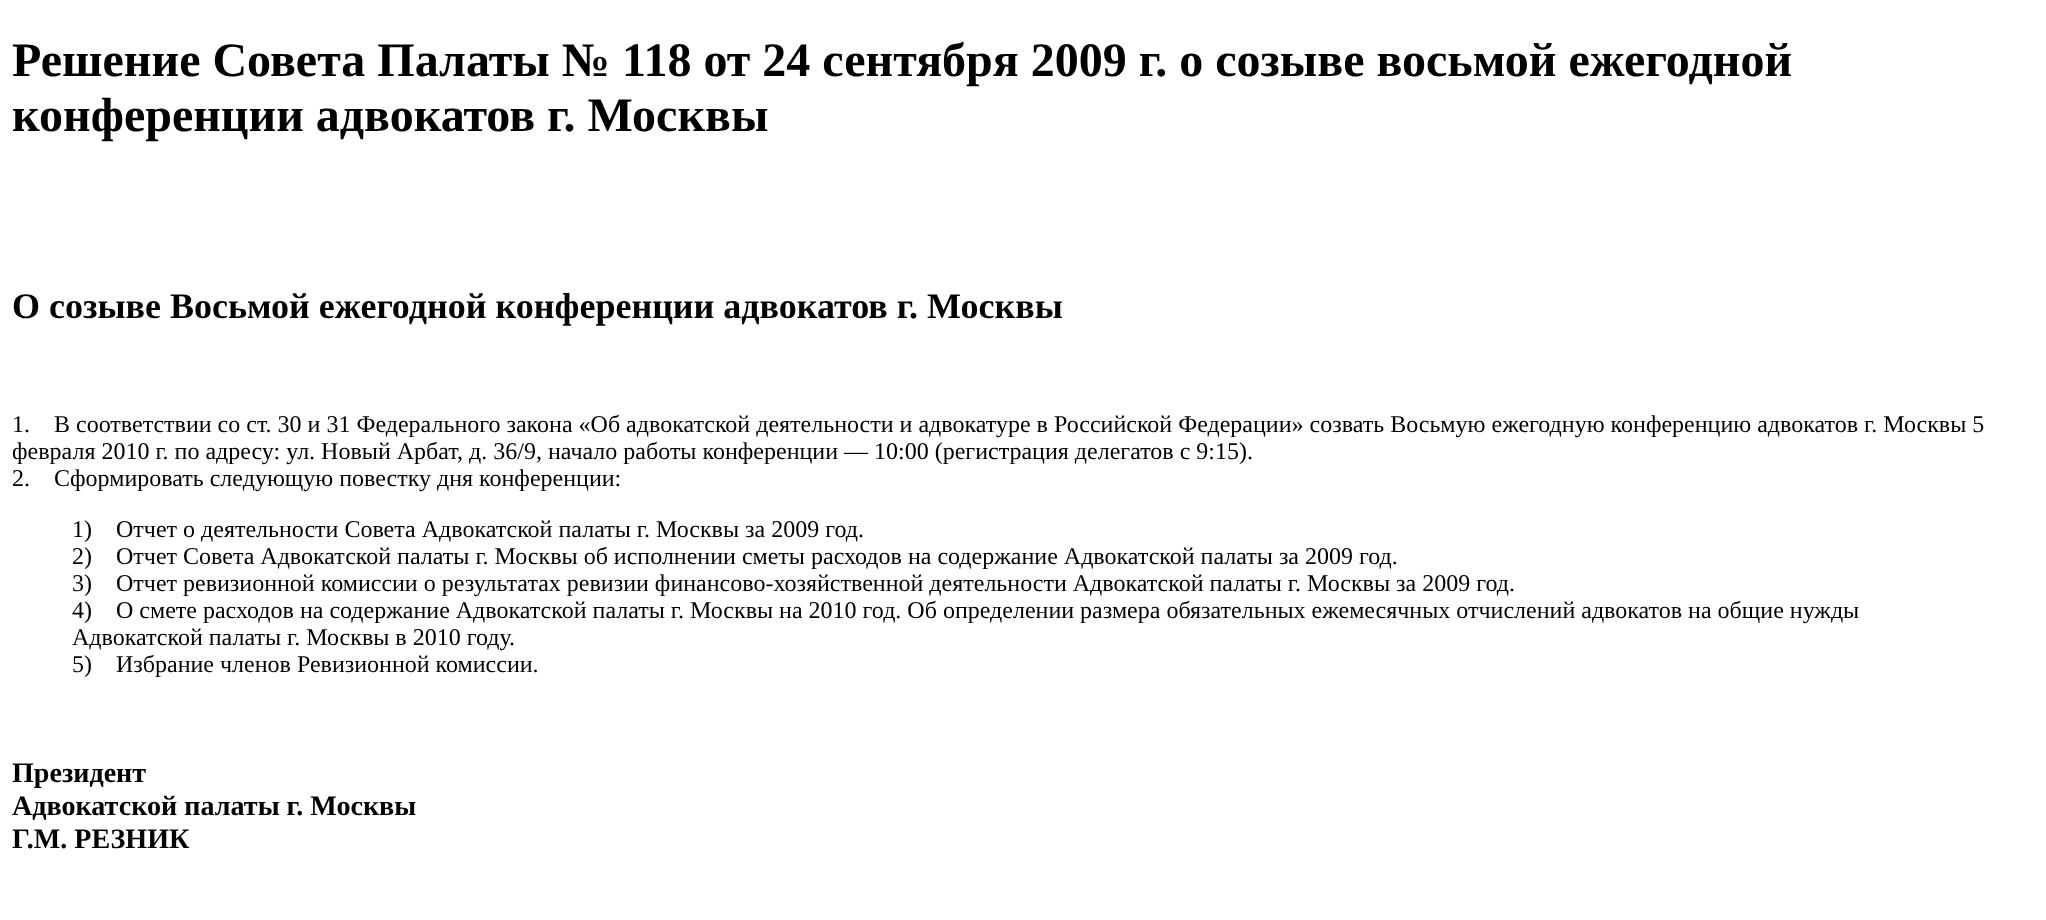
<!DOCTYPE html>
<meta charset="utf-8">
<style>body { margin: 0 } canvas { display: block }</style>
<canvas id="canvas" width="2046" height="920"></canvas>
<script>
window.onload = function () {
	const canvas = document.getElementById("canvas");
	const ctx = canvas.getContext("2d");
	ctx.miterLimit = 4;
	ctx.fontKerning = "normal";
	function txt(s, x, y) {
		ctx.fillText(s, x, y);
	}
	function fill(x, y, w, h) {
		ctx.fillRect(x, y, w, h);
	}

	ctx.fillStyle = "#FFFFFF";
	fill(0, 0, 2046, 920);
	ctx.font = "bold 48px Liberation Serif";
	ctx.fillStyle = "#000000";
	txt("Решение Совета Палаты № 118 от 24 сентября 2009 г. о созыве восьмой ежегодной", 12, 76);
	txt("конференции адвокатов г. Москвы", 12, 131);
	ctx.font = "bold 36px Liberation Serif";
	txt("О созыве Восьмой ежегодной конференции адвокатов г. Москвы", 12, 318);
	ctx.font = "24px Liberation Serif";
	txt("1.    В соответствии со ст. 30 и 31 Федерального закона «Об адвокатской деятельности и адвокатуре в Российской Федерации» созвать Восьмую ежегодную конференцию адвокатов г. Москвы 5", 12, 432);
	txt("февраля 2010 г. по адресу: ул. Новый Арбат, д. 36/9, начало работы конференции — 10:00 (регистрация делегатов с 9:15).", 12, 459);
	txt("2.    Сформировать следующую повестку дня конференции:", 12, 486);
	txt("1)    Отчет о деятельности Совета Адвокатской палаты г. Москвы за 2009 год.", 72, 537);
	txt("2)    Отчет Совета Адвокатской палаты г. Москвы об исполнении сметы расходов на содержание Адвокатской палаты за 2009 год.", 72, 564);
	txt("3)    Отчет ревизионной комиссии о результатах ревизии финансово-хозяйственной деятельности Адвокатской палаты г. Москвы за 2009 год.", 72, 591);
	txt("4)    О смете расходов на содержание Адвокатской палаты г. Москвы на 2010 год. Об определении размера обязательных ежемесячных отчислений адвокатов на общие нужды", 72, 618);
	txt("Адвокатской палаты г. Москвы в 2010 году.", 72, 645);
	txt("5)    Избрание членов Ревизионной комиссии.", 72, 672);
	ctx.font = "bold 28.1px Liberation Serif";
	txt("Президент", 12, 782);
	txt("Адвокатской палаты г. Москвы", 12, 815);
	txt("Г.М. РЕЗНИК", 12, 848);
};
</script>
